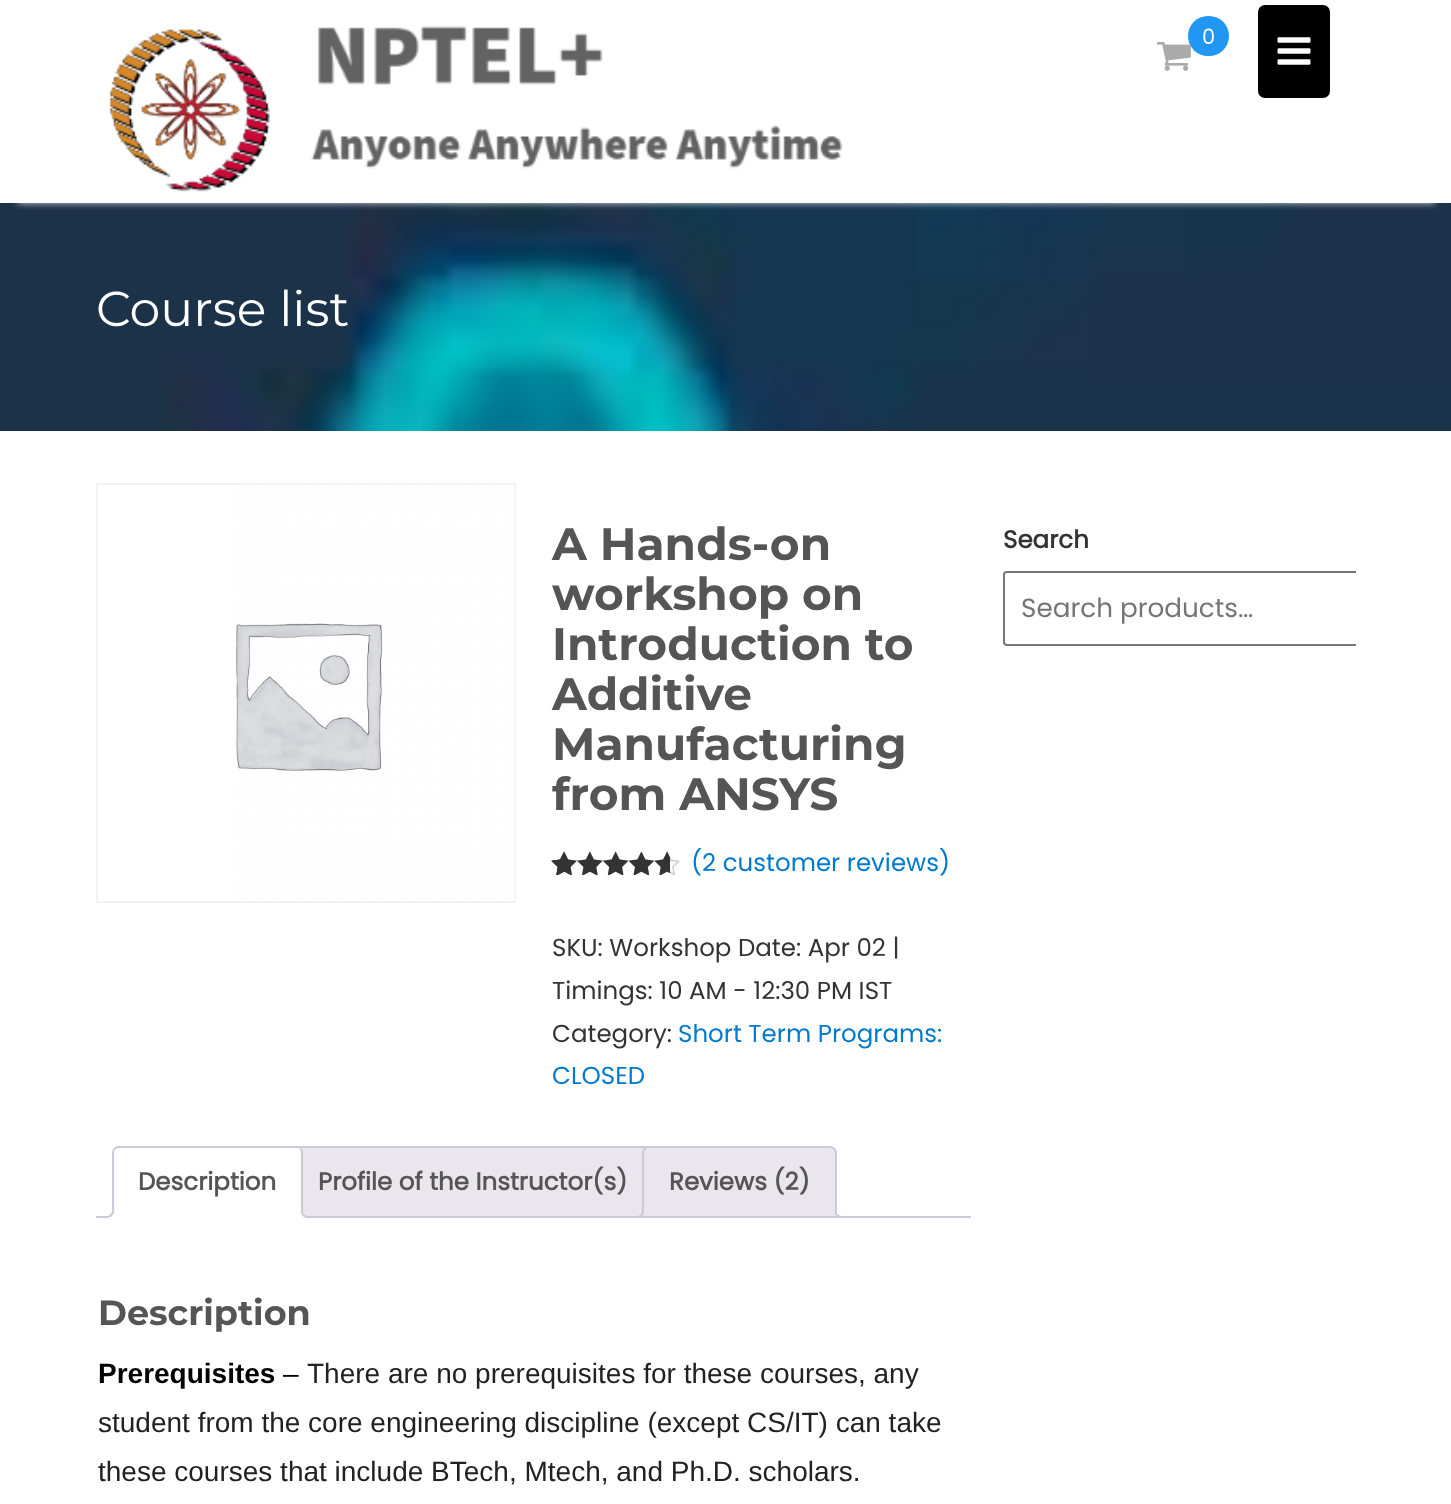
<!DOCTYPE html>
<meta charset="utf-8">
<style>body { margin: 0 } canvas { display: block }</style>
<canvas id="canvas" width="1451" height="1504"></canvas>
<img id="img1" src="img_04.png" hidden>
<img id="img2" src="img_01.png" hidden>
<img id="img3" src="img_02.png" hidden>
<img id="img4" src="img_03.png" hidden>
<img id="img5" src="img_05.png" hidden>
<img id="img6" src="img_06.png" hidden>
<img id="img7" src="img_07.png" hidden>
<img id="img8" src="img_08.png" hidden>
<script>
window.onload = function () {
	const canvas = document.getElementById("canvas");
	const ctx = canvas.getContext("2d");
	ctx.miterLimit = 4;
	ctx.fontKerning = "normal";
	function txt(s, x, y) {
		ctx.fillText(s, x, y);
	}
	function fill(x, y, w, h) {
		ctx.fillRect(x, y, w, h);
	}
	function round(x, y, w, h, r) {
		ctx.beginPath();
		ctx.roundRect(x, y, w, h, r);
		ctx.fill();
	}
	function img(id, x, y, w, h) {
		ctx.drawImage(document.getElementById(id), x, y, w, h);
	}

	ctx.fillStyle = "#FFFFFF";
	fill(0, 0, 1451, 1504);
	img("img1", 0, 203, 1451, 228);
	ctx.save();
	ctx.beginPath();
	ctx.rect(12, 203, 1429, 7);
	ctx.clip();
	ctx.fillStyle = "rgba(238, 238, 238, 0.9)";
	ctx.filter = "blur(3.5px)";
	ctx.beginPath();
	ctx.rect(18, 35, 1417, 168);
	ctx.fill();
	ctx.filter = "none";
	ctx.restore();
	img("img2", 109, 26, 734, 166);
	img("img3", 1156, 42, 35, 29);
	ctx.fillStyle = "#2196F3";
	round(1188, 16, 41, 40, 20);
	ctx.fillStyle = "#000000";
	round(1258, 5, 72, 93, 7);
	img("img4", 1277, 37, 34, 28);
	ctx.strokeStyle = "#F2F2F2";
	ctx.lineWidth = 2;
	ctx.strokeRect(97, 484, 418, 418);
	img("img5", 236, 485, 279, 416);
	img("img6", 551, 851, 129, 24);
	img("img7", 551, 851, 119, 24);
	img("img8", 551, 851, 13, 24);
	ctx.fillStyle = "#E9E6ED";
	fill(298, 1146, 351, 70);
	ctx.strokeStyle = "#CFC8D8";
	ctx.strokeRect(293, 1147, 361, 70);
	ctx.beginPath();
	ctx.roundRect(643, 1147, 193, 70, [6, 6, 0, 0]);
	ctx.fill();
	ctx.stroke();
	ctx.save();
	ctx.beginPath();
	ctx.rect(96, 1146, 875, 72);
	ctx.clip();
	ctx.beginPath();
	ctx.moveTo(639, 1217.5);
	ctx.lineTo(639, 1222);
	ctx.bezierCurveTo(645.5, 1222, 648, 1219.5, 648, 1213);
	ctx.lineTo(643.5, 1213);
	ctx.bezierCurveTo(643, 1215.5, 641.5, 1217, 639, 1217.5);
	ctx.closePath();
	ctx.fill();
	ctx.restore();
	ctx.fillStyle = "#CFC8D8";
	ctx.beginPath();
	ctx.moveTo(635, 1209);
	ctx.lineTo(644, 1209);
	ctx.bezierCurveTo(644, 1215.5, 641.5, 1218, 635, 1218);
	ctx.closePath();
	ctx.moveTo(635, 1209);
	ctx.lineTo(642, 1209);
	ctx.bezierCurveTo(642, 1214.5, 640.5, 1216, 635, 1216);
	ctx.closePath();
	ctx.fill("evenodd");
	ctx.save();
	ctx.beginPath();
	ctx.rect(96, 1146, 875, 72);
	ctx.clip();
	ctx.fillStyle = "#E9E6ED";
	ctx.beginPath();
	ctx.moveTo(831, 1213);
	ctx.bezierCurveTo(831, 1219.5, 833.5, 1222, 840, 1222);
	ctx.lineTo(840, 1218);
	ctx.bezierCurveTo(837.5, 1217, 835.5, 1215.5, 835, 1213);
	ctx.closePath();
	ctx.fill();
	ctx.restore();
	ctx.beginPath();
	ctx.moveTo(835, 1209);
	ctx.lineTo(843.5, 1209);
	ctx.lineTo(843.5, 1218);
	ctx.bezierCurveTo(839, 1218, 835, 1216.5, 835, 1211);
	ctx.closePath();
	ctx.moveTo(836.5, 1209);
	ctx.lineTo(843.5, 1209);
	ctx.lineTo(843.5, 1216);
	ctx.bezierCurveTo(840, 1216, 836.5, 1215.5, 836.5, 1211);
	ctx.closePath();
	ctx.fill("evenodd");
	fill(96, 1216, 875, 2);
	ctx.fillStyle = "#FFFFFF";
	ctx.beginPath();
	ctx.roundRect(112, 1146, 191, 72, [7, 7, 0, 0]);
	ctx.fill();
	ctx.fillStyle = "#CFC8D8";
	ctx.beginPath();
	ctx.moveTo(119, 1148);
	ctx.bezierCurveTo(117, 1148, 116, 1149, 115, 1150);
	ctx.lineTo(114, 1148);
	ctx.lineTo(117, 1146);
	ctx.lineTo(298, 1146);
	ctx.lineTo(301, 1148);
	ctx.lineTo(300, 1149);
	ctx.bezierCurveTo(299, 1148, 298, 1148, 296, 1148);
	ctx.closePath();
	ctx.fill();
	ctx.beginPath();
	ctx.moveTo(303, 1151);
	ctx.lineTo(303, 1218);
	ctx.lineTo(301, 1216);
	ctx.lineTo(301, 1153);
	ctx.bezierCurveTo(301, 1152, 300, 1150, 300, 1149);
	ctx.lineTo(301, 1148);
	ctx.closePath();
	ctx.fill();
	ctx.fillStyle = "#FFFFFF";
	ctx.beginPath();
	ctx.moveTo(303, 1218);
	ctx.lineTo(301, 1216);
	ctx.lineTo(114, 1216);
	ctx.lineTo(112, 1218);
	ctx.closePath();
	ctx.fill();
	ctx.fillStyle = "#CFC8D8";
	ctx.beginPath();
	ctx.moveTo(112, 1218);
	ctx.lineTo(114, 1216);
	ctx.lineTo(114, 1153);
	ctx.bezierCurveTo(114, 1152, 114, 1150, 115, 1150);
	ctx.lineTo(114, 1148);
	ctx.bezierCurveTo(113, 1149, 112, 1151, 112, 1153);
	ctx.closePath();
	ctx.fill();
	ctx.save();
	ctx.beginPath();
	ctx.rect(96, 1146, 875, 72);
	ctx.clip();
	ctx.fillStyle = "#FFFFFF";
	ctx.beginPath();
	ctx.moveTo(109, 1217.5);
	ctx.lineTo(109, 1222);
	ctx.bezierCurveTo(115, 1222, 117, 1218.5, 117, 1213);
	ctx.lineTo(113.5, 1213);
	ctx.bezierCurveTo(113, 1215, 111, 1217, 109, 1217.5);
	ctx.closePath();
	ctx.fill();
	ctx.restore();
	ctx.beginPath();
	ctx.moveTo(105, 1209);
	ctx.lineTo(114, 1209);
	ctx.bezierCurveTo(114, 1215.5, 111, 1218, 105, 1218);
	ctx.closePath();
	ctx.moveTo(105, 1209);
	ctx.lineTo(112, 1209);
	ctx.bezierCurveTo(112, 1214.5, 110, 1216, 105, 1216);
	ctx.closePath();
	ctx.fill("evenodd");
	ctx.save();
	ctx.beginPath();
	ctx.rect(96, 1146, 875, 72);
	ctx.clip();
	ctx.fillStyle = "#FFFFFF";
	ctx.beginPath();
	ctx.moveTo(298, 1213);
	ctx.bezierCurveTo(298, 1218.5, 300, 1222, 306, 1222);
	ctx.lineTo(306, 1217.5);
	ctx.bezierCurveTo(303.5, 1217, 302, 1215.5, 301.5, 1213);
	ctx.closePath();
	ctx.fill();
	ctx.restore();
	ctx.beginPath();
	ctx.moveTo(301, 1209);
	ctx.lineTo(310, 1209);
	ctx.lineTo(310, 1218);
	ctx.bezierCurveTo(305.5, 1218, 301, 1216.5, 301, 1211);
	ctx.closePath();
	ctx.moveTo(303, 1209);
	ctx.lineTo(310, 1209);
	ctx.lineTo(310, 1216);
	ctx.bezierCurveTo(306.5, 1216, 303, 1215.5, 303, 1211);
	ctx.closePath();
	ctx.fill("evenodd");
	ctx.save();
	ctx.beginPath();
	ctx.rect(1003, 518, 353, 128);
	ctx.clip();
	ctx.beginPath();
	ctx.roundRect(1004, 572, 386, 73, 3);
	ctx.strokeStyle = "#767676";
	ctx.stroke();
	ctx.restore();
	ctx.font = "21px Poppins";
	ctx.fillStyle = "#FFFFFF";
	txt("0", 1202, 44);
	ctx.font = "49px Montserrat";
	txt("Course list", 96, 326);
	ctx.font = "bold 45.5px Montserrat";
	ctx.fillStyle = "#555555";
	txt("A Hands-on", 552, 560);
	txt("workshop on", 552, 610);
	txt("Introduction to", 552, 660);
	txt("Additive", 552, 710);
	txt("Manufacturing", 552, 760);
	txt("from ANSYS", 552, 810);
	ctx.font = "24.5px Poppins";
	ctx.fillStyle = "#007ACC";
	txt("(2 customer reviews)", 691, 871);
	ctx.fillStyle = "#333333";
	txt("SKU: Workshop Date: Apr 02 |", 552, 956);
	txt("Timings: 10 AM - 12:30 PM IST", 552, 999);
	txt("Category:", 552, 1042);
	ctx.fillStyle = "#007ACC";
	txt("Short Term Programs:", 678, 1042);
	txt("CLOSED", 552, 1084);
	ctx.font = "bold 24.5px Poppins";
	ctx.fillStyle = "#555555";
	txt("Description", 138, 1190);
	txt("Profile of the Instructor(s)", 318, 1190);
	txt("Reviews (2)", 669, 1190);
	ctx.font = "bold 35px Montserrat";
	txt("Description", 98, 1325);
	ctx.font = "bold 28px Liberation Sans";
	ctx.fillStyle = "#000000";
	txt("Prerequisites", 98, 1383);
	ctx.font = "28px Liberation Sans";
	txt("–", 283, 1383);
	ctx.fillStyle = "#212121";
	txt("There are no prerequisites for these courses, any", 307, 1383);
	txt("student from the core engineering discipline (except CS/IT) can take", 98, 1432);
	txt("these courses that include BTech, Mtech, and Ph.D. scholars.", 98, 1481);
	ctx.font = "bold 24.5px Poppins";
	ctx.fillStyle = "#333333";
	txt("Search", 1003, 548);
	ctx.font = "26.25px Poppins";
	ctx.fillStyle = "#757575";
	txt("Search products…", 1021, 617);
};
</script>
